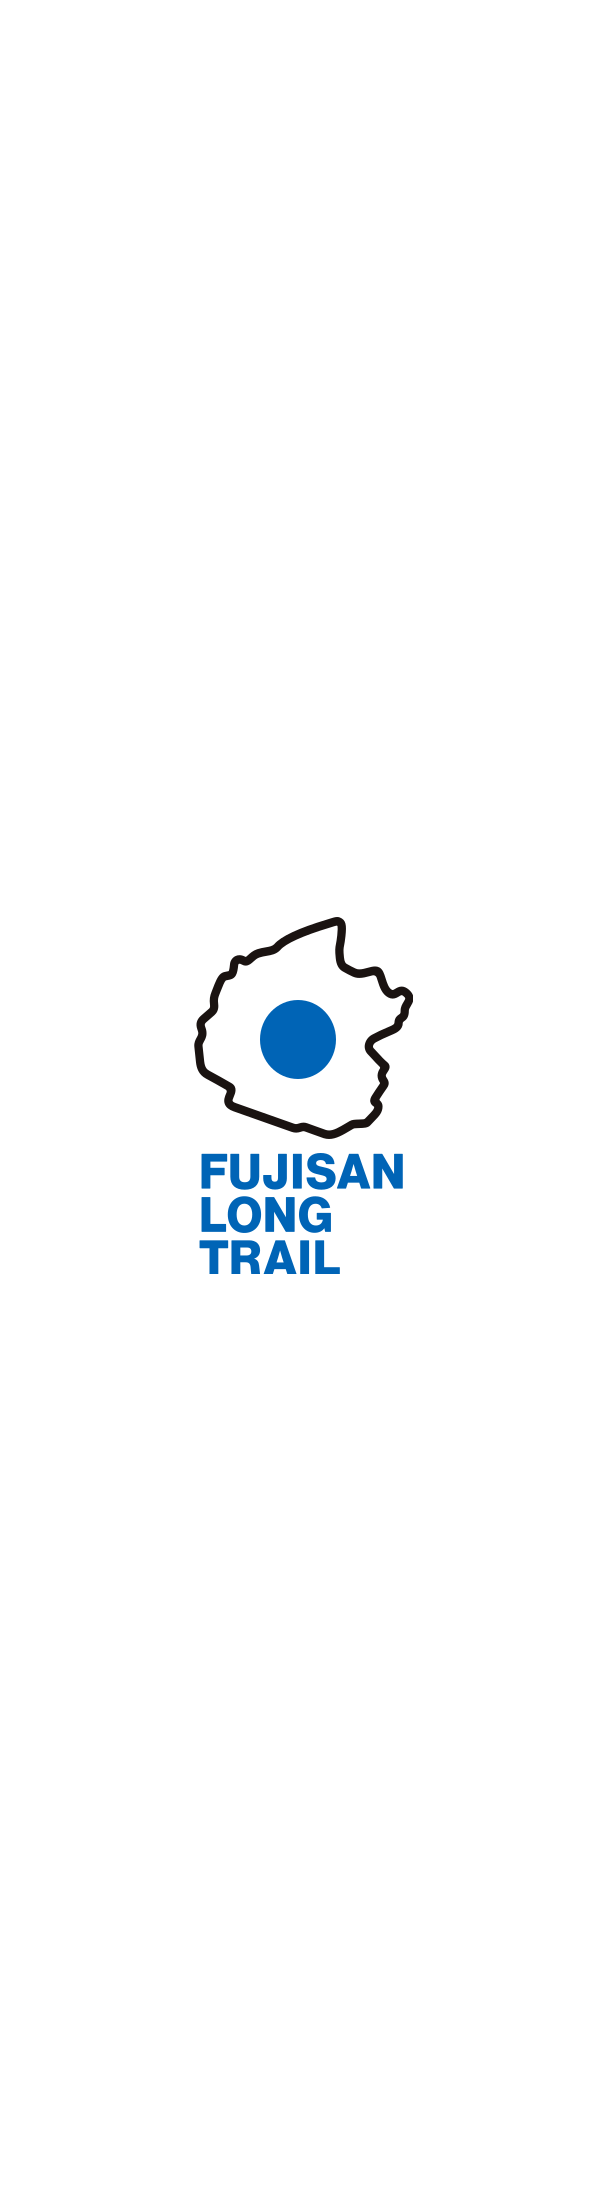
<!DOCTYPE html>
<meta charset="utf-8">
<style>body { margin: 0 } canvas { display: block }</style>
<canvas id="canvas" width="606" height="2191"></canvas>
<img id="img1" src="img_01.png" hidden>
<script>
window.onload = function () {
	const canvas = document.getElementById("canvas");
	const ctx = canvas.getContext("2d");
	ctx.miterLimit = 4;
	ctx.fontKerning = "normal";
	function fill(x, y, w, h) {
		ctx.fillRect(x, y, w, h);
	}
	function img(id, x, y, w, h) {
		ctx.drawImage(document.getElementById(id), x, y, w, h);
	}

	ctx.fillStyle = "#FFFFFF";
	fill(0, 0, 606, 2191);
	img("img1", 194, 917, 219, 357);
};
</script>
